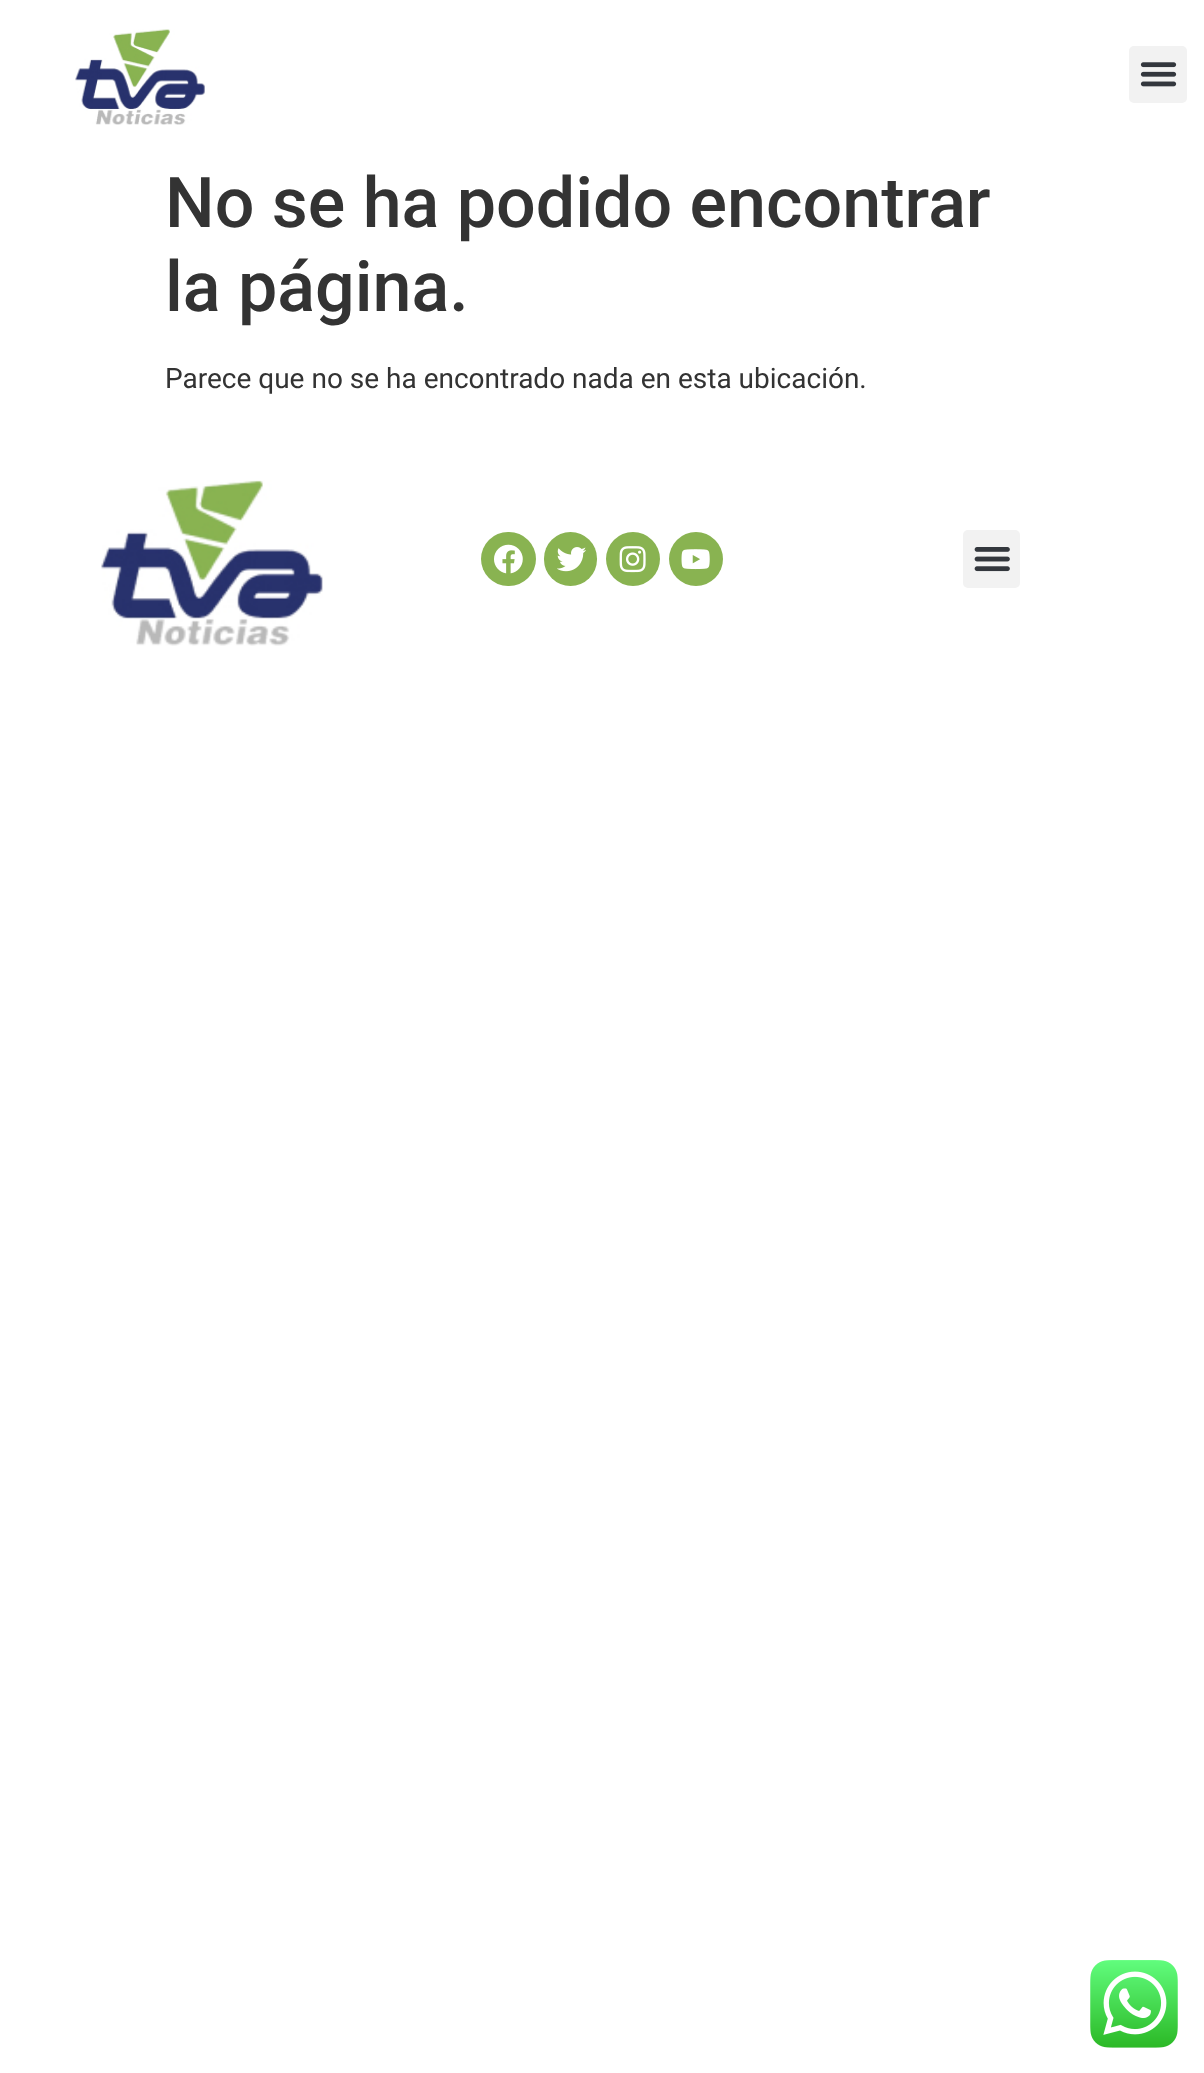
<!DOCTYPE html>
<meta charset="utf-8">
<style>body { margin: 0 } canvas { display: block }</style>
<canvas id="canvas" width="1204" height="2073"></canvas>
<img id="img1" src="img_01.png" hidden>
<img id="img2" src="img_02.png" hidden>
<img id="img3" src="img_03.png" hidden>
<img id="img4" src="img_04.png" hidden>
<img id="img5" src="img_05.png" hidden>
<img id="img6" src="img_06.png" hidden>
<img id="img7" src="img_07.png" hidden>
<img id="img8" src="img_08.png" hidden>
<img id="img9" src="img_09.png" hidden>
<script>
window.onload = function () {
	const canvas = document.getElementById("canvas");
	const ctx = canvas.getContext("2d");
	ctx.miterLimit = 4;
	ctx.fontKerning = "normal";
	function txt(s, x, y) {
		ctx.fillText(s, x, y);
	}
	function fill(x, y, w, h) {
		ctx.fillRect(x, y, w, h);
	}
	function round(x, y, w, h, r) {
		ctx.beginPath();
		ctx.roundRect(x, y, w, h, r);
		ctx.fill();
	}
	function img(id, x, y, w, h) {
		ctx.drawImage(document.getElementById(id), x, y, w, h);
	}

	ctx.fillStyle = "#FFFFFF";
	fill(0, 0, 1204, 2073);
	img("img1", 75, 29, 130, 96);
	ctx.fillStyle = "#F2F2F2";
	round(1129, 46, 58, 57, 5);
	img("img2", 1140, 62, 37, 25);
	img("img3", 101, 480, 222, 166);
	ctx.fillStyle = "#89B351";
	round(481, 532, 55, 54, 27);
	img("img4", 494, 544, 29, 30);
	round(544, 532, 53, 54, 26.5);
	img("img5", 557, 547, 29, 25);
	ctx.beginPath();
	ctx.arc(633, 559, 27, 0, Math.PI * 2);
	ctx.fill();
	img("img6", 619, 546, 27, 27);
	ctx.beginPath();
	ctx.arc(696, 559, 27, 0, Math.PI * 2);
	ctx.fill();
	img("img7", 681, 549, 29, 21);
	ctx.fillStyle = "#F2F2F2";
	round(963, 530, 57, 58, 5);
	img("img8", 974, 547, 36, 25);
	img("img9", 1090, 1960, 88, 88);
	ctx.font = "500 70px Roboto";
	ctx.fillStyle = "#333333";
	txt("No se ha podido encontrar", 165, 227);
	txt("la página.", 165, 311);
	ctx.font = "28px Roboto";
	txt("Parece que no se ha encontrado nada en esta ubicación.", 165, 388);
};
</script>
